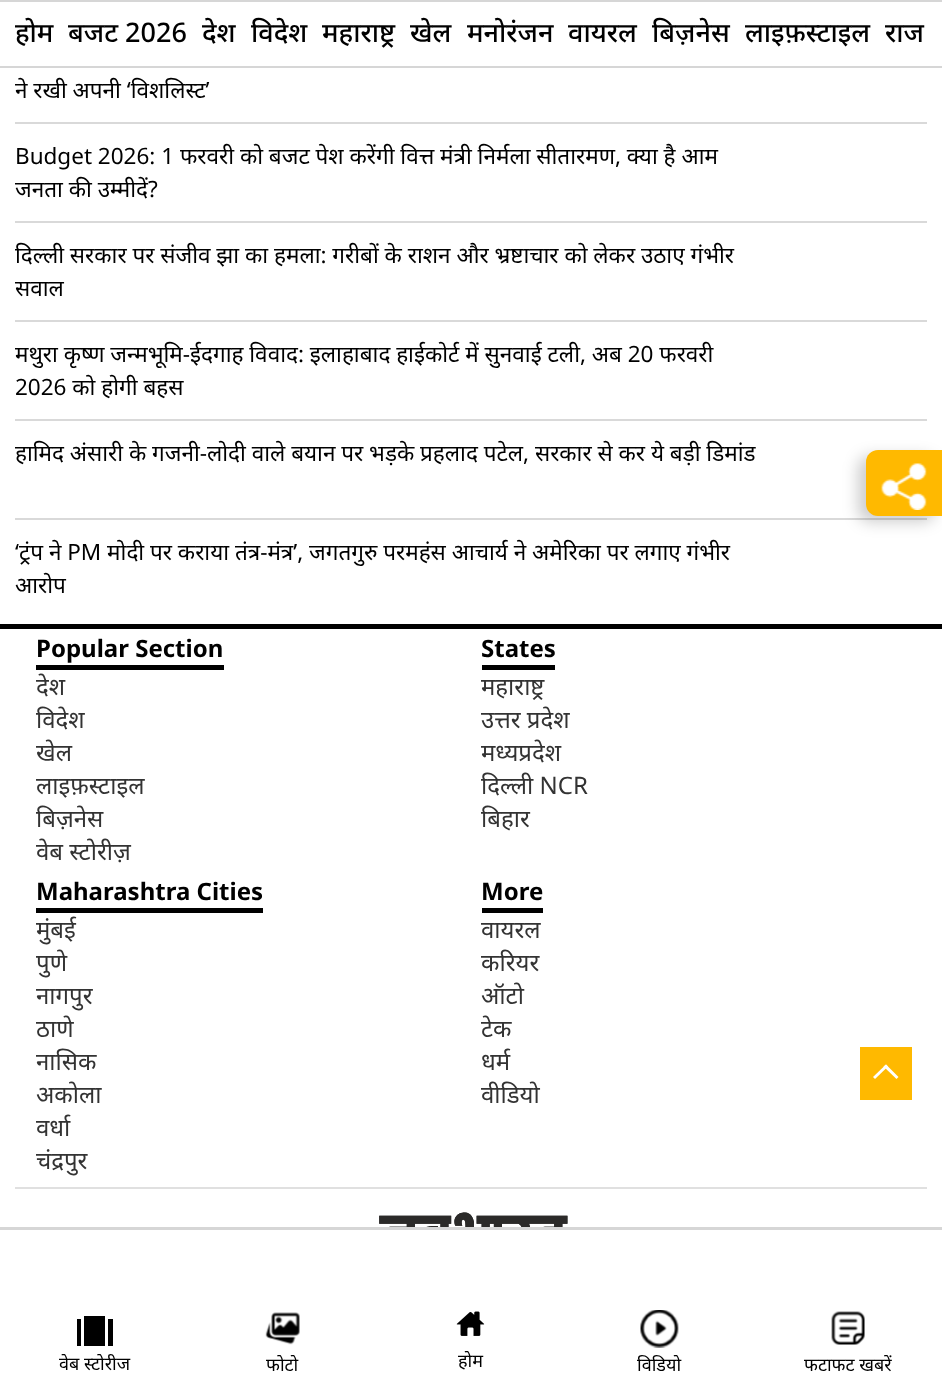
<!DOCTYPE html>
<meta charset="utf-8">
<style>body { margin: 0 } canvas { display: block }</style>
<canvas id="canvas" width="942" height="1376"></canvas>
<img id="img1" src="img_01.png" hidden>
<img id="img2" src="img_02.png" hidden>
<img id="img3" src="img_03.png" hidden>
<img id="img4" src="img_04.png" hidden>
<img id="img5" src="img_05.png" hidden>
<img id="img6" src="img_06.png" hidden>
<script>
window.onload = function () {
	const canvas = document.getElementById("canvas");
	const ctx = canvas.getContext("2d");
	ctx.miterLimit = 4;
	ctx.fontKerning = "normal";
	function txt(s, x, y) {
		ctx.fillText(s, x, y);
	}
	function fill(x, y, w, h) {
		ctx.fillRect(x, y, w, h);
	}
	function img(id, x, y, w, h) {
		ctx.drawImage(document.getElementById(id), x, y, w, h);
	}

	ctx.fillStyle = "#FFFFFF";
	fill(0, 0, 942, 1376);
	ctx.fillStyle = "#D6D6D6";
	fill(0, 0, 942, 2);
	fill(0, 66, 942, 2);
	fill(0, 1227, 942, 3);
	ctx.fillStyle = "#000000";
	fill(84, 1316, 21, 30);
	fill(108, 1319, 5, 27);
	fill(77, 1319, 4, 27);
	img("img1", 265, 1312, 35, 33);
	img("img2", 456, 1311, 29, 25);
	img("img3", 640, 1310, 39, 38);
	img("img4", 831, 1311, 34, 34);
	ctx.fillStyle = "#D9D9D9";
	fill(15, 122, 912, 2);
	fill(15, 221, 912, 2);
	fill(15, 320, 912, 2);
	fill(15, 419, 912, 2);
	fill(15, 518, 912, 2);
	ctx.fillStyle = "rgba(0, 0, 0, 0.2)";
	ctx.filter = "blur(7.5px)";
	ctx.beginPath();
	ctx.roundRect(858, 456, 77, 66, 12);
	ctx.fill();
	ctx.filter = "none";
	ctx.fillStyle = "#FFB900";
	ctx.beginPath();
	ctx.roundRect(866, 450, 76, 66, [12, 0, 0, 12]);
	ctx.fill();
	img("img5", 881, 463, 46, 47);
	ctx.fillStyle = "#000000";
	fill(0, 624, 942, 5);
	ctx.fillStyle = "#E0E0E0";
	fill(15, 1187, 912, 2);
	ctx.fillStyle = "#000000";
	fill(36, 665, 188, 5);
	fill(482, 665, 73, 5);
	fill(36, 908, 227, 5);
	fill(482, 908, 61, 5);
	img("img6", 379, 1212, 189, 15);
	ctx.fillStyle = "#FFB900";
	fill(860, 1047, 52, 53);
	ctx.fillStyle = "#FFFFFF";
	ctx.beginPath();
	ctx.moveTo(875, 1079);
	ctx.lineTo(873, 1077);
	ctx.lineTo(886, 1064.5);
	ctx.lineTo(888, 1066.5);
	ctx.closePath();
	ctx.fill();
	ctx.beginPath();
	ctx.moveTo(896.5, 1079);
	ctx.lineTo(883.5, 1066.5);
	ctx.lineTo(886, 1064.5);
	ctx.lineTo(898.5, 1077);
	ctx.closePath();
	ctx.fill();
	ctx.save();
	ctx.beginPath();
	ctx.rect(15, 15, 912, 33);
	ctx.clip();
	ctx.font = "500 27px Noto Sans";
	ctx.fillStyle = "#000000";
	txt("होम", 15, 42);
	ctx.restore();
	ctx.font = "500 27px Noto Sans";
	ctx.fillStyle = "#000000";
	txt("बजट 2026", 68, 42);
	txt("देश", 202, 42);
	txt("विदेश", 251, 42);
	txt("महाराष्ट्र", 322, 42);
	txt("खेल", 410, 42);
	txt("मनोरंजन", 467, 42);
	txt("वायरल", 568, 42);
	txt("बिज़नेस", 652, 42);
	txt("लाइफ़स्टाइल", 745, 42);
	txt("राज", 885, 42);
	ctx.font = "18px Noto Sans";
	txt("वेब स्टोरीज", 59, 1370);
	txt("फोटो", 266, 1371);
	txt("होम", 458, 1367);
	txt("विडियो", 637, 1371);
	txt("फटाफट खबरें", 804, 1371);
	ctx.save();
	ctx.beginPath();
	ctx.rect(15, 39, 747, 66);
	ctx.clip();
	ctx.font = "22.5px Noto Sans";
	txt("ने रखी अपनी ‘विशलिस्ट’", 15, 98);
	ctx.restore();
	ctx.font = "22.5px Noto Sans";
	txt("Budget 2026: 1 फरवरी को बजट पेश करेंगी वित्त मंत्री निर्मला सीतारमण, क्या है आम", 15, 164);
	txt("जनता की उम्मीदें?", 15, 197);
	txt("दिल्ली सरकार पर संजीव झा का हमला: गरीबों के राशन और भ्रष्टाचार को लेकर उठाए गंभीर", 15, 263);
	txt("सवाल", 15, 296);
	txt("मथुरा कृष्ण जन्मभूमि-ईदगाह विवाद: इलाहाबाद हाईकोर्ट में सुनवाई टली, अब 20 फरवरी", 15, 362);
	txt("2026 को होगी बहस", 15, 395);
	txt("हामिद अंसारी के गजनी-लोदी वाले बयान पर भड़के प्रहलाद पटेल, सरकार से कर ये बड़ी डिमांड", 15, 461);
	ctx.save();
	ctx.beginPath();
	ctx.rect(15, 534, 747, 66);
	ctx.clip();
	txt("‘ट्रंप ने PM मोदी पर कराया तंत्र-मंत्र’, जगतगुरु परमहंस आचार्य ने अमेरिका पर लगाए गंभीर", 15, 560);
	ctx.restore();
	txt("आरोप", 15, 593);
	ctx.font = "bold 24px Noto Sans";
	txt("Popular Section", 36, 657);
	ctx.font = "24px Noto Sans";
	ctx.fillStyle = "#333333";
	txt("देश", 36, 695);
	txt("विदेश", 36, 728);
	txt("खेल", 36, 761);
	txt("लाइफ़स्टाइल", 36, 794);
	txt("बिज़नेस", 36, 827);
	txt("वेब स्टोरीज़", 36, 860);
	ctx.font = "bold 24px Noto Sans";
	ctx.fillStyle = "#000000";
	txt("States", 481, 657);
	ctx.font = "24px Noto Sans";
	ctx.fillStyle = "#333333";
	txt("महाराष्ट्र", 481, 695);
	txt("उत्तर प्रदेश", 481, 728);
	txt("मध्यप्रदेश", 481, 761);
	txt("दिल्ली NCR", 481, 794);
	txt("बिहार", 481, 827);
	ctx.font = "bold 24px Noto Sans";
	ctx.fillStyle = "#000000";
	txt("Maharashtra Cities", 36, 900);
	ctx.font = "24px Noto Sans";
	ctx.fillStyle = "#333333";
	txt("मुंबई", 36, 938);
	txt("पुणे", 36, 971);
	txt("नागपुर", 36, 1004);
	txt("ठाणे", 36, 1037);
	txt("नासिक", 36, 1070);
	txt("अकोला", 36, 1103);
	txt("वर्धा", 36, 1136);
	txt("चंद्रपुर", 36, 1169);
	ctx.font = "bold 24px Noto Sans";
	ctx.fillStyle = "#000000";
	txt("More", 481, 900);
	ctx.font = "24px Noto Sans";
	ctx.fillStyle = "#333333";
	txt("वायरल", 481, 938);
	txt("करियर", 481, 971);
	txt("ऑटो", 481, 1004);
	txt("टेक", 481, 1037);
	txt("धर्म", 481, 1070);
	txt("वीडियो", 481, 1103);
};
</script>
